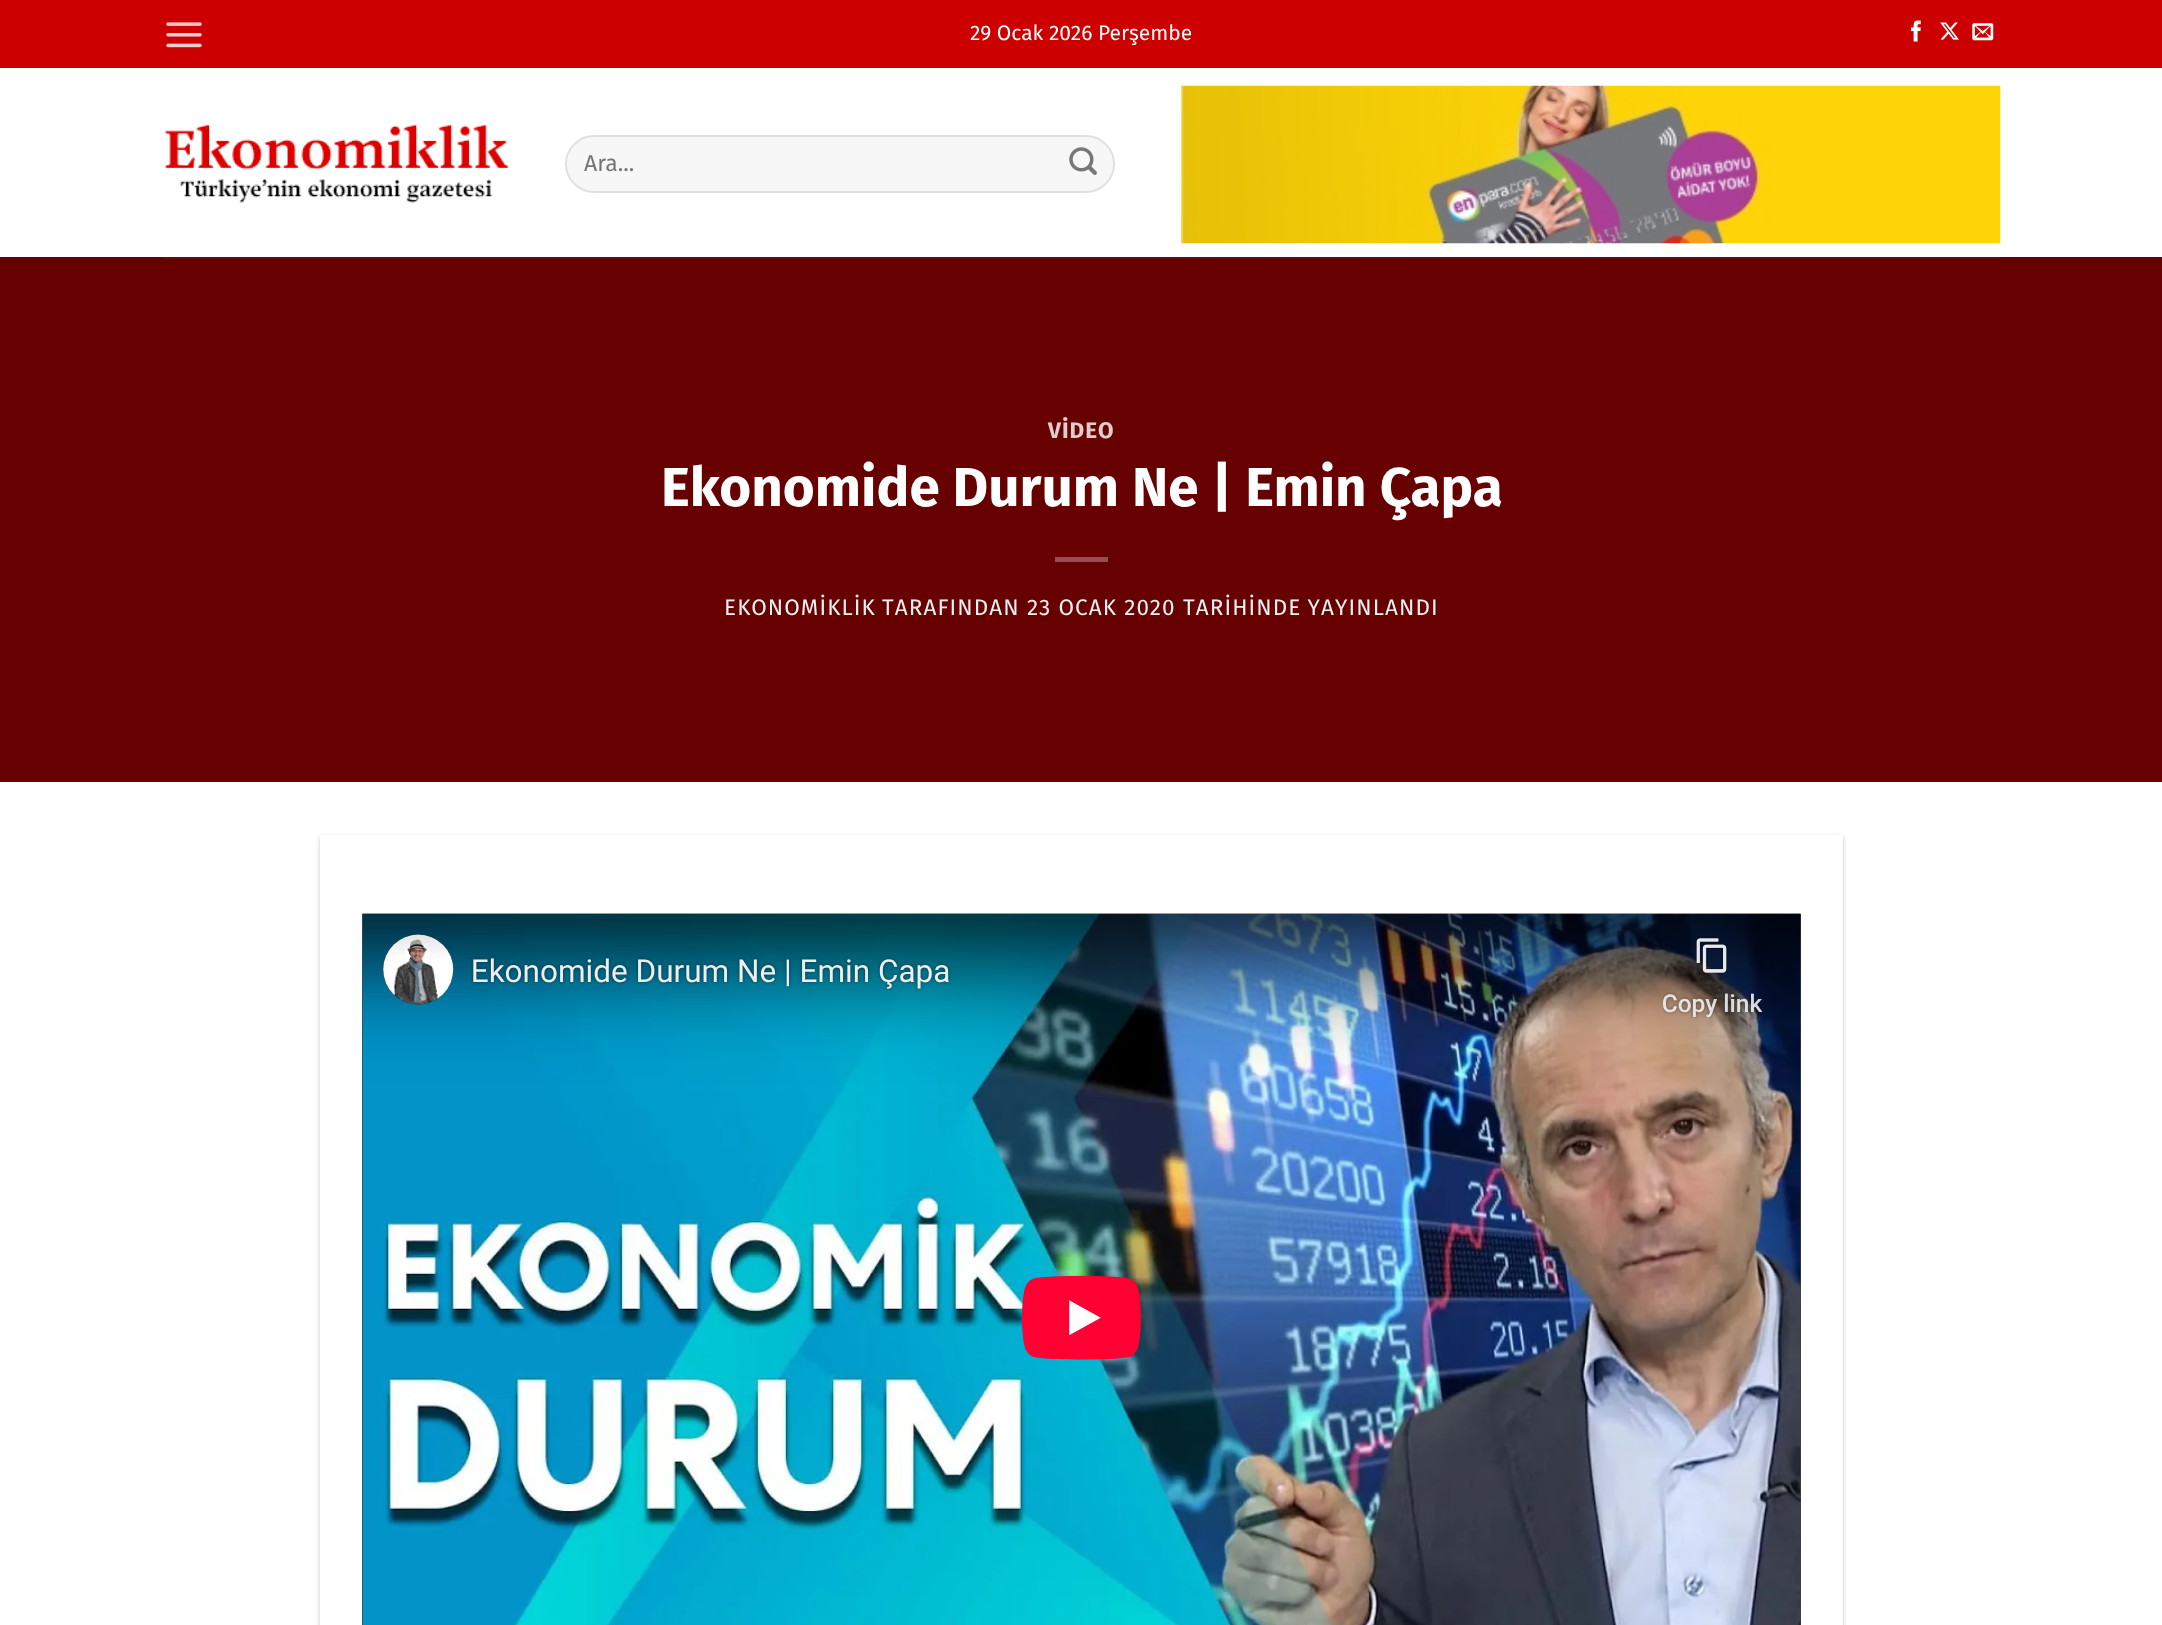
<!DOCTYPE html>
<meta charset="utf-8">
<style>body { margin: 0 } canvas { display: block }</style>
<canvas id="canvas" width="2162" height="1625"></canvas>
<img id="img1" src="img_01.png" hidden>
<img id="img2" src="img_02.png" hidden>
<img id="img3" src="img_03.png" hidden>
<img id="img4" src="img_04.png" hidden>
<img id="img5" src="img_05.png" hidden>
<img id="img6" src="img_06.png" hidden>
<img id="img7" src="img_07.png" hidden>
<img id="img8" src="img_08.png" hidden>
<script>
window.onload = function () {
	const canvas = document.getElementById("canvas");
	const ctx = canvas.getContext("2d");
	ctx.miterLimit = 4;
	ctx.fontKerning = "normal";
	function txt(s, x, y) {
		ctx.fillText(s, x, y);
	}
	function fill(x, y, w, h) {
		ctx.fillRect(x, y, w, h);
	}
	function round(x, y, w, h, r) {
		ctx.beginPath();
		ctx.roundRect(x, y, w, h, r);
		ctx.fill();
	}
	function img(id, x, y, w, h) {
		ctx.drawImage(document.getElementById(id), x, y, w, h);
	}

	ctx.fillStyle = "#FFFFFF";
	fill(0, 0, 2162, 1625);
	ctx.fillStyle = "#CC0000";
	fill(0, 0, 2162, 68);
	img("img1", 166, 22, 36, 26);
	img("img2", 1911, 20, 10, 22);
	img("img3", 1940, 22, 19, 18);
	img("img4", 1972, 23, 22, 18);
	img("img5", 165, 124, 344, 79);
	ctx.fillStyle = "#F7F7F7";
	round(565, 135, 550, 58, 29);
	ctx.beginPath();
	ctx.roundRect(566, 136, 548, 56, 28);
	ctx.strokeStyle = "rgba(0, 0, 0, 0.09)";
	ctx.lineWidth = 2;
	ctx.stroke();
	img("img6", 1069, 147, 28, 28);
	img("img7", 1181, 85, 820, 159);
	ctx.fillStyle = "#670000";
	fill(0, 257, 2162, 525);
	ctx.fillStyle = "#620C0C";
	fill(163, 257, 1837, 2);
	ctx.fillStyle = "#954D4D";
	fill(1055, 557, 53, 5);
	ctx.fillStyle = "rgba(0, 0, 0, 0.24)";
	ctx.filter = "blur(2px)";
	ctx.beginPath();
	ctx.rect(320, 837, 1523, 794);
	ctx.fill();
	ctx.filter = "none";
	ctx.fillStyle = "#FFFFFF";
	fill(320, 835, 1523, 790);
	img("img8", 362, 913, 1439, 712);
	ctx.font = "21px Fira Sans";
	txt("29 Ocak 2026 Perşembe", 970, 40);
	ctx.font = "23px Fira Sans";
	ctx.fillStyle = "#757575";
	txt("Ara...", 584, 171);
	ctx.letterSpacing = "1.1px";
	ctx.font = "bold 22.5px Fira Sans";
	ctx.fillStyle = "#E1CCCC";
	txt("VİDEO", 1048, 438);
	ctx.letterSpacing = "0px";
	ctx.font = "bold 54.75px Fira Sans";
	ctx.fillStyle = "#FFFFFF";
	txt("Ekonomide Durum Ne | Emin Çapa", 661, 506);
	ctx.letterSpacing = "1.1px";
	ctx.font = "22.5px Fira Sans";
	ctx.fillStyle = "#F1F1F1";
	txt("EKONOMİKLİK", 724, 615);
	txt("TARAFINDAN 23 OCAK 2020", 882, 615);
	ctx.wordSpacing = "-1px";
	txt("TARİHİNDE YAYINLANDI", 1183, 615);
};
</script>
